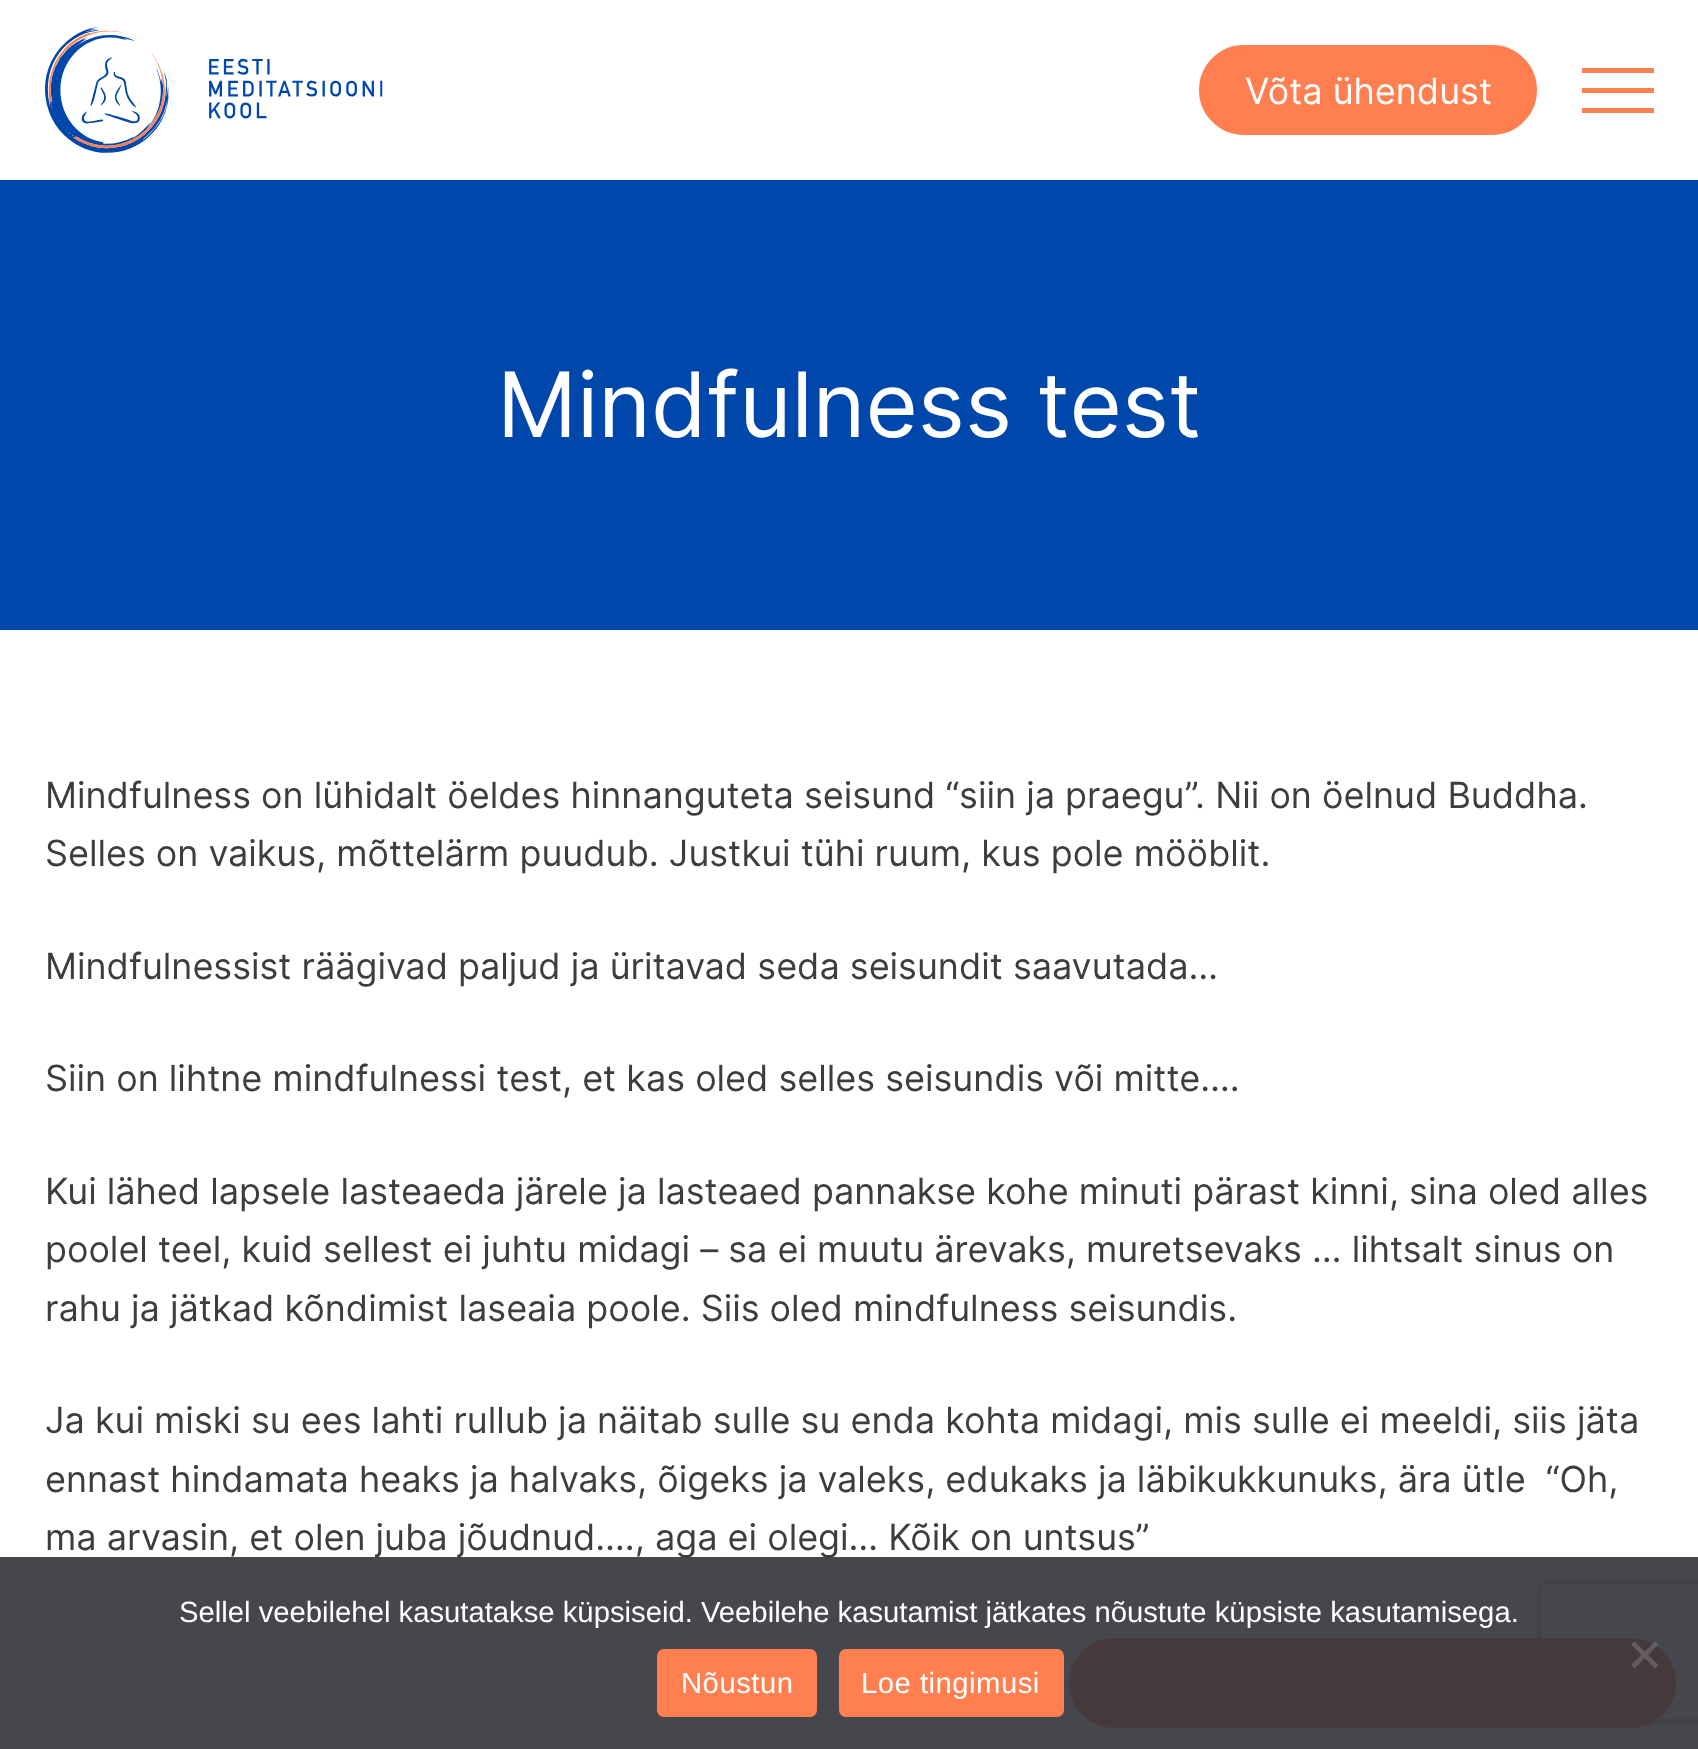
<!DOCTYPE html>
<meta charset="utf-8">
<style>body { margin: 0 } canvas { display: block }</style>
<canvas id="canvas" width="1698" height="1749"></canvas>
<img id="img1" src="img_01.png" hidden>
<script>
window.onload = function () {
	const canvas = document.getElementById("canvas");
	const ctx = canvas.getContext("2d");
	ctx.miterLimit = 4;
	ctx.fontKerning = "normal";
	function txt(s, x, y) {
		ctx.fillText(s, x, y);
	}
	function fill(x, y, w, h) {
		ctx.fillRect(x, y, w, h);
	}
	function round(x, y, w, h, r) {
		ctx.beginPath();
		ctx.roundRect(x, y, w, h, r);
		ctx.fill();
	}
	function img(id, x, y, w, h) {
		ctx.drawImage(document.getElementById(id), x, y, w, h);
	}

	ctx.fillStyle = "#FFFFFF";
	fill(0, 0, 1698, 1749);
	img("img1", 45, 27, 338, 126);
	ctx.fillStyle = "#FF7F50";
	ctx.beginPath();
	ctx.roundRect(1201.5, 47.5, 333, 85, 42.5);
	ctx.fill();
	ctx.strokeStyle = "#FF7F50";
	ctx.lineWidth = 5;
	ctx.stroke();
	fill(1582, 68, 72, 5);
	fill(1582, 88, 72, 5);
	fill(1582, 108, 72, 5);
	ctx.fillStyle = "#0047AB";
	fill(0, 180, 1698, 450);
	ctx.save();
	ctx.beginPath();
	ctx.moveTo(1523, 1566);
	ctx.lineTo(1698, 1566);
	ctx.lineTo(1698, 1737);
	ctx.lineTo(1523, 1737);
	ctx.closePath();
	ctx.moveTo(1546, 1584);
	ctx.lineTo(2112, 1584);
	ctx.bezierCurveTo(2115, 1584, 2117, 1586, 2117, 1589);
	ctx.lineTo(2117, 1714);
	ctx.bezierCurveTo(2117, 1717, 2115, 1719, 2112, 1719);
	ctx.lineTo(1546, 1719);
	ctx.bezierCurveTo(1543, 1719, 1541, 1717, 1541, 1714);
	ctx.lineTo(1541, 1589);
	ctx.bezierCurveTo(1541, 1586, 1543, 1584, 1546, 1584);
	ctx.closePath();
	ctx.clip("evenodd");
	ctx.fillStyle = "#808080";
	ctx.filter = "blur(5.5px)";
	ctx.beginPath();
	ctx.roundRect(1541, 1584, 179, 135, 5);
	ctx.fill();
	ctx.filter = "none";
	ctx.restore();
	ctx.fillStyle = "#FF7F50";
	ctx.beginPath();
	ctx.roundRect(1071.5, 1640.5, 602, 85, 42.5);
	ctx.fill();
	ctx.stroke();
	ctx.font = "36px Inter";
	ctx.fillStyle = "#FFFFFF";
	txt("Võta ühendust", 1245, 104);
	ctx.font = "90px Inter";
	txt("Mindfulness test", 497, 437);
	ctx.font = "36px Inter";
	ctx.fillStyle = "#3D3D3D";
	txt("Mindfulness on lühidalt öeldes hinnanguteta seisund “siin ja praegu”. Nii on öelnud Buddha.", 45, 808);
	txt("Selles on vaikus, mõttelärm puudub. Justkui tühi ruum, kus pole mööblit.", 45, 866);
	txt("Mindfulnessist räägivad paljud ja üritavad seda seisundit saavutada…", 45, 979);
	txt("Siin on lihtne mindfulnessi test, et kas oled selles seisundis või mitte….", 45, 1091);
	txt("Kui lähed lapsele lasteaeda järele ja lasteaed pannakse kohe minuti pärast kinni, sina oled alles", 45, 1204);
	txt("poolel teel, kuid sellest ei juhtu midagi – sa ei muutu ärevaks, muretsevaks … lihtsalt sinus on", 45, 1262);
	txt("rahu ja jätkad kõndimist laseaia poole. Siis oled mindfulness seisundis.", 45, 1321);
	txt("Ja kui miski su ees lahti rullub ja näitab sulle su enda kohta midagi, mis sulle ei meeldi, siis jäta", 45, 1433);
	txt("ennast hindamata heaks ja halvaks, õigeks ja valeks, edukaks ja läbikukkunuks, ära ütle  “Oh,", 45, 1492);
	txt("ma arvasin, et olen juba jõudnud…., aga ei olegi… Kõik on untsus”", 45, 1550);
	ctx.fillStyle = "rgba(50, 50, 58, 0.9)";
	fill(0, 1557, 1698, 192);
	ctx.font = "29.25px Liberation Sans";
	ctx.fillStyle = "#FFFFFF";
	txt("Sellel veebilehel kasutatakse küpsiseid. Veebilehe kasutamist jätkates nõustute küpsiste kasutamisega.", 179, 1622);
	ctx.fillStyle = "rgba(128, 128, 128, 0.5)";
	ctx.beginPath();
	ctx.moveTo(1655, 1641.5);
	ctx.lineTo(1658.5, 1644.5);
	ctx.lineTo(1634.5, 1668.5);
	ctx.lineTo(1631, 1665);
	ctx.closePath();
	ctx.fill();
	ctx.fillStyle = "#635D5E";
	ctx.beginPath();
	ctx.moveTo(1631, 1644.5);
	ctx.lineTo(1634.5, 1641.5);
	ctx.lineTo(1658.5, 1665);
	ctx.lineTo(1655, 1668.5);
	ctx.closePath();
	ctx.fill();
	ctx.fillStyle = "#FF7F50";
	round(657, 1649, 160, 68, 7);
	ctx.letterSpacing = "0.5px";
	ctx.fillStyle = "#FFFFFF";
	txt("Nõustun", 681, 1693);
	ctx.fillStyle = "#FF7F50";
	round(839, 1649, 225, 68, 7);
	ctx.fillStyle = "#FFFFFF";
	txt("Loe tingimusi", 861, 1693);
};
</script>
